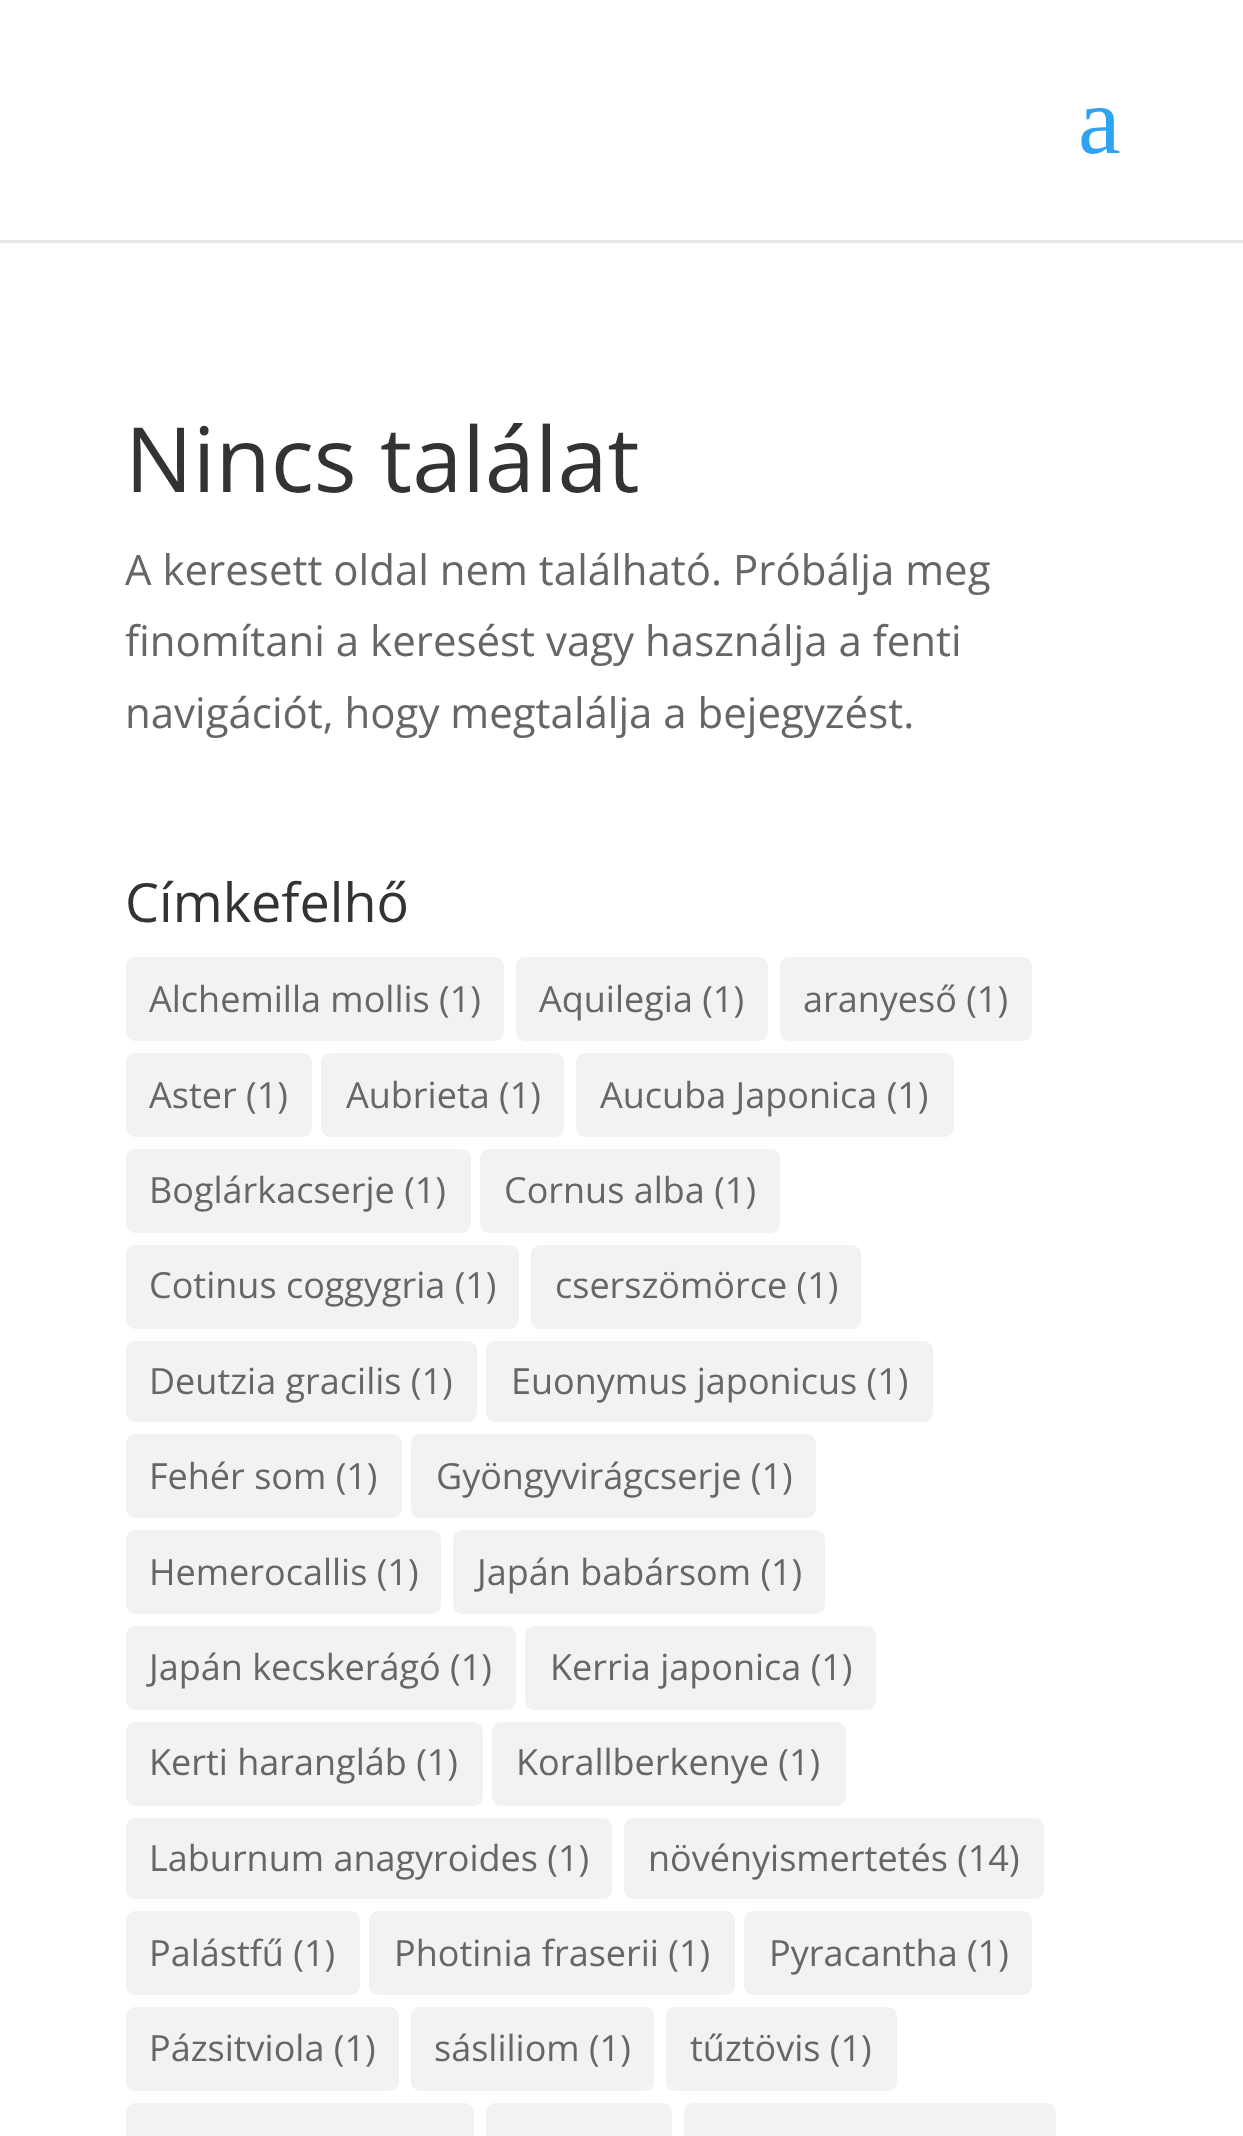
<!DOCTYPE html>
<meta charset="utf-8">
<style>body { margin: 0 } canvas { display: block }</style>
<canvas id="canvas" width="1243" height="2136"></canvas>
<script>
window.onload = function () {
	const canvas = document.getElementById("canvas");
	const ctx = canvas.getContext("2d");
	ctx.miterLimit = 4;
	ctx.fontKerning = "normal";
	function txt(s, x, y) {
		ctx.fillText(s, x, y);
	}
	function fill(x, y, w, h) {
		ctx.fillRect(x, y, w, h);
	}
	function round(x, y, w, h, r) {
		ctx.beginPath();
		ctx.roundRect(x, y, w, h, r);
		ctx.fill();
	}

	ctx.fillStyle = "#FFFFFF";
	fill(0, 0, 1243, 2136);
	ctx.fillStyle = "#E6E6E6";
	fill(0, 240, 1243, 3);
	ctx.fillStyle = "#F2F2F2";
	round(126, 957, 378, 84, 9);
	round(516, 957, 252, 84, 9);
	round(780, 957, 252, 84, 9);
	round(126, 1053, 186, 84, 9);
	round(321, 1053, 243, 84, 9);
	round(576, 1053, 378, 84, 9);
	round(126, 1149, 345, 84, 9);
	round(480, 1149, 300, 84, 9);
	round(126, 1245, 393, 84, 9);
	round(531, 1245, 330, 84, 9);
	round(126, 1341, 351, 81, 9);
	round(486, 1341, 447, 81, 9);
	round(126, 1434, 276, 84, 9);
	round(411, 1434, 405, 84, 9);
	round(126, 1530, 315, 84, 9);
	round(453, 1530, 372, 84, 9);
	round(126, 1626, 390, 84, 9);
	round(525, 1626, 351, 84, 9);
	round(126, 1722, 357, 84, 9);
	round(492, 1722, 354, 84, 9);
	round(126, 1818, 486, 81, 9);
	round(624, 1818, 420, 81, 9);
	round(126, 1911, 234, 84, 9);
	round(369, 1911, 366, 84, 9);
	round(744, 1911, 288, 84, 9);
	round(126, 2007, 273, 84, 9);
	round(411, 2007, 243, 84, 9);
	round(666, 2007, 231, 84, 9);
	round(126, 2103, 348, 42, 9);
	round(486, 2103, 186, 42, 9);
	round(684, 2103, 372, 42, 9);
	ctx.font = "96px Liberation Serif";
	ctx.fillStyle = "#2EA3F2";
	txt("a", 1078, 153);
	ctx.font = "90px Open Sans";
	ctx.fillStyle = "#333333";
	txt("Nincs találat", 125, 492);
	ctx.font = "42px Open Sans";
	ctx.fillStyle = "#666666";
	txt("A keresett oldal nem található. Próbálja meg", 125, 585);
	txt("finomítani a keresést vagy használja a fenti", 125, 656);
	txt("navigációt, hogy megtalálja a bejegyzést.", 125, 728);
	ctx.font = "54px Open Sans";
	ctx.fillStyle = "#333333";
	txt("Címkefelhő", 125, 922);
	ctx.font = "36px Open Sans";
	ctx.fillStyle = "#666666";
	txt("Alchemilla mollis (1)", 149, 1012);
	txt("Aquilegia (1)", 539, 1012);
	txt("aranyeső (1)", 803, 1012);
	txt("Aster (1)", 149, 1108);
	txt("Aubrieta (1)", 346, 1108);
	txt("Aucuba Japonica (1)", 600, 1108);
	txt("Boglárkacserje (1)", 149, 1203);
	txt("Cornus alba (1)", 504, 1203);
	txt("Cotinus coggygria (1)", 149, 1298);
	txt("cserszömörce (1)", 555, 1298);
	txt("Deutzia gracilis (1)", 149, 1394);
	txt("Euonymus japonicus (1)", 511, 1394);
	txt("Fehér som (1)", 149, 1489);
	txt("Gyöngyvirágcserje (1)", 436, 1489);
	txt("Hemerocallis (1)", 149, 1585);
	txt("Japán babársom (1)", 477, 1585);
	txt("Japán kecskerágó (1)", 149, 1680);
	txt("Kerria japonica (1)", 550, 1680);
	txt("Kerti harangláb (1)", 149, 1775);
	txt("Korallberkenye (1)", 516, 1775);
	txt("Laburnum anagyroides (1)", 149, 1871);
	txt("növényismertetés (14)", 648, 1871);
	txt("Palástfű (1)", 149, 1966);
	txt("Photinia fraserii (1)", 394, 1966);
	txt("Pyracantha (1)", 769, 1966);
	txt("Pázsitviola (1)", 149, 2061);
	txt("sásliliom (1)", 434, 2061);
	txt("tűztövis (1)", 690, 2061);
};
</script>
